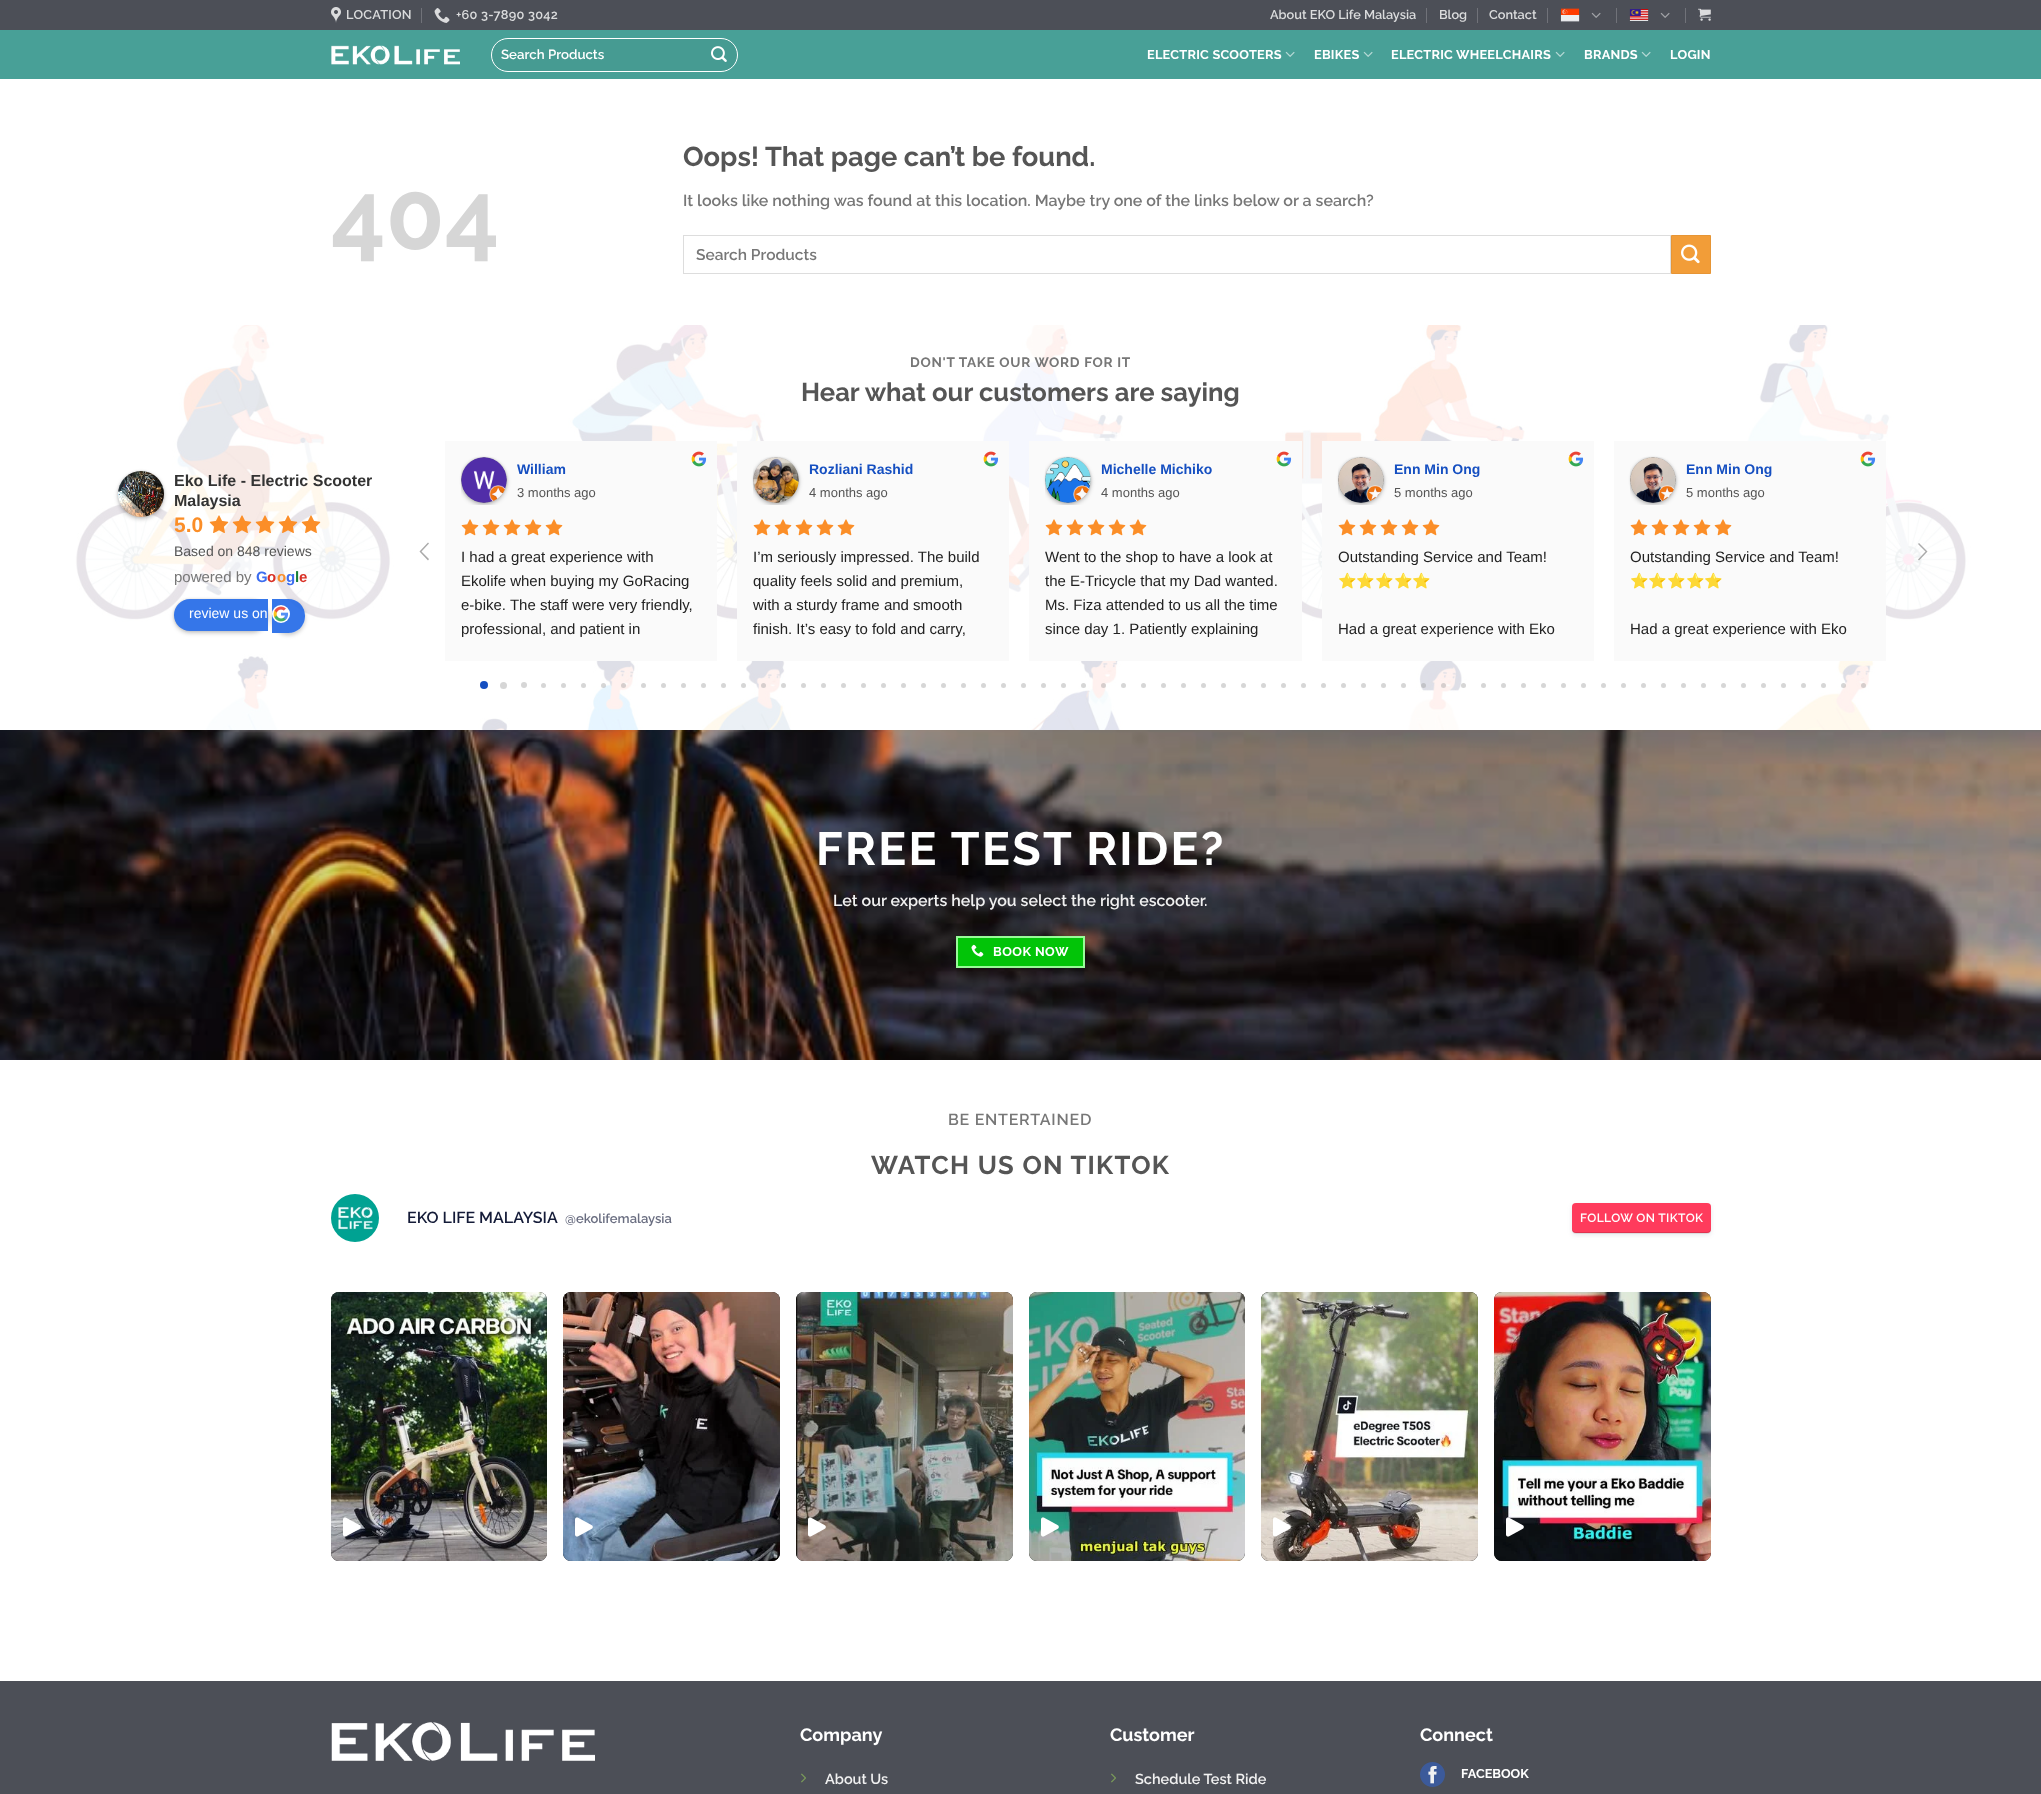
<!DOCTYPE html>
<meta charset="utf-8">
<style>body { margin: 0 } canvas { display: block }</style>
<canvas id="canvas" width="2041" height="1794"></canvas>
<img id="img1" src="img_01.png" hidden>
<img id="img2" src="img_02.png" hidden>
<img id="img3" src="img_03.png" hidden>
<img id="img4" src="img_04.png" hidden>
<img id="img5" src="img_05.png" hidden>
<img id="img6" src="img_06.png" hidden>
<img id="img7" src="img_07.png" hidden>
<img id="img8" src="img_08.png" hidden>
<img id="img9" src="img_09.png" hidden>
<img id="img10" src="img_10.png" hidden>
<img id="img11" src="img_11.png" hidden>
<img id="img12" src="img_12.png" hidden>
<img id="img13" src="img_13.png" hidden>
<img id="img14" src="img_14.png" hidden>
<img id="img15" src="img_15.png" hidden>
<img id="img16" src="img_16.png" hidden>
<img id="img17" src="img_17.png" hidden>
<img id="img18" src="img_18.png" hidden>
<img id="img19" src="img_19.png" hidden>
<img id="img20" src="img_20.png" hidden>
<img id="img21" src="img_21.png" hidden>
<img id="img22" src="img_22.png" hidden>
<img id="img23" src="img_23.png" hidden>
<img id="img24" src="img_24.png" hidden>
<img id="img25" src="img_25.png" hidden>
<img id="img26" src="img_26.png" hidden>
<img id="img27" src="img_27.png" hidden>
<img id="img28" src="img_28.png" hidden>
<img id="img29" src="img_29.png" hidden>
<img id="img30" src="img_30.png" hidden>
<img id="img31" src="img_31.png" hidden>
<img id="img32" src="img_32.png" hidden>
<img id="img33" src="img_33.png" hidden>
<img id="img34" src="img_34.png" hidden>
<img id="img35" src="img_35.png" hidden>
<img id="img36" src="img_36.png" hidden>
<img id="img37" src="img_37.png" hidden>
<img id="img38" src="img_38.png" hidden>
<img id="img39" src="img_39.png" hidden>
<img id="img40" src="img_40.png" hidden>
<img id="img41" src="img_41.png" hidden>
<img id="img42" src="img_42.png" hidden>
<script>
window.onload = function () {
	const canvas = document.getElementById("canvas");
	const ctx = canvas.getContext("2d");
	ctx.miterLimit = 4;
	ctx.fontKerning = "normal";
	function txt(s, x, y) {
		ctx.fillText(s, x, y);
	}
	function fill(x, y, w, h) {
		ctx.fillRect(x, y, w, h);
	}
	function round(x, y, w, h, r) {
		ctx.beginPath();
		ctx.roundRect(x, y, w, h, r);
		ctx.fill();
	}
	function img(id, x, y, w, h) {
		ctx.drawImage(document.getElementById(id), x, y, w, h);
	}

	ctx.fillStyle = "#FFFFFF";
	fill(0, 0, 2041, 1794);
	ctx.fillStyle = "#4C4F57";
	fill(0, 0, 2041, 30);
	img("img1", 331, 7, 10, 16);
	ctx.fillStyle = "#707279";
	fill(421, 8, 1, 15);
	img("img2", 434, 8, 16, 15);
	fill(1426, 8, 1, 15);
	fill(1477, 8, 1, 15);
	fill(1547, 8, 1, 15);
	img("img3", 1560, 8, 20, 14);
	img("img4", 1591, 12, 10, 6);
	fill(1616, 8, 1, 15);
	img("img5", 1629, 9, 20, 12);
	img("img4", 1660, 12, 10, 6);
	fill(1685, 8, 1, 15);
	img("img6", 1698, 8, 13, 13);
	ctx.fillStyle = "#48A097";
	fill(0, 30, 2041, 49);
	img("img7", 331, 45, 129, 20);
	ctx.fillStyle = "#469B92";
	ctx.beginPath();
	ctx.roundRect(491.5, 38.5, 246, 33, 16.5);
	ctx.fill();
	ctx.strokeStyle = "#FFFFFF";
	ctx.stroke();
	img("img8", 711, 46, 16, 16);
	img("img9", 1285, 51, 10, 6);
	img("img9", 1363, 51, 10, 6);
	img("img9", 1555, 51, 10, 6);
	img("img9", 1641, 51, 10, 6);
	ctx.strokeStyle = "#DDDDDD";
	ctx.strokeRect(683.5, 235.5, 987, 38);
	ctx.fillStyle = "#F29D38";
	ctx.beginPath();
	ctx.rect(1671.5, 235.5, 39, 38);
	ctx.fill();
	ctx.strokeStyle = "#E69535";
	ctx.stroke();
	img("img10", 1681, 244, 19, 20);
	img("img11", 75, 325, 1896, 405);
	ctx.fillStyle = "rgba(0, 0, 0, 0.24)";
	ctx.filter = "blur(2px)";
	ctx.beginPath();
	ctx.roundRect(118, 473, 46, 46, 23);
	ctx.fill();
	ctx.filter = "none";
	ctx.fillStyle = "rgba(0, 0, 0, 0.12)";
	ctx.filter = "blur(1px)";
	ctx.beginPath();
	ctx.roundRect(118, 471, 46, 46, 23);
	ctx.fill();
	ctx.filter = "none";
	img("img12", 118, 471, 46, 46);
	img("img13", 209, 515, 20, 18);
	img("img14", 232, 515, 20, 18);
	img("img15", 255, 515, 20, 18);
	img("img16", 278, 515, 20, 18);
	img("img17", 301, 515, 20, 18);
	ctx.fillStyle = "rgba(0, 0, 0, 0.22)";
	ctx.filter = "blur(2px)";
	ctx.beginPath();
	ctx.roundRect(174, 601, 94, 32, 16);
	ctx.fill();
	ctx.filter = "none";
	ctx.fillStyle = "rgba(25, 25, 25, 0.12)";
	ctx.filter = "blur(1px)";
	ctx.beginPath();
	ctx.roundRect(174, 599, 94, 32, 16);
	ctx.fill();
	ctx.filter = "none";
	ctx.fillStyle = "#3576E9";
	ctx.beginPath();
	ctx.roundRect(174, 599, 94, 32, [16, 0, 0, 16]);
	ctx.fill();
	ctx.save();
	ctx.beginPath();
	ctx.moveTo(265, 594);
	ctx.lineTo(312, 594);
	ctx.lineTo(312, 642);
	ctx.lineTo(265, 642);
	ctx.closePath();
	ctx.moveTo(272, 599);
	ctx.lineTo(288.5, 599);
	ctx.bezierCurveTo(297.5, 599, 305, 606.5, 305, 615.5);
	ctx.lineTo(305, 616.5);
	ctx.bezierCurveTo(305, 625.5, 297.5, 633, 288.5, 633);
	ctx.lineTo(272, 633);
	ctx.closePath();
	ctx.clip("evenodd");
	ctx.fillStyle = "rgba(0, 0, 0, 0.22)";
	ctx.filter = "blur(2px)";
	ctx.beginPath();
	ctx.roundRect(272, 601, 33, 34, 16.5);
	ctx.fill();
	ctx.filter = "none";
	ctx.restore();
	ctx.fillStyle = "rgba(31, 103, 231, 0.9)";
	ctx.beginPath();
	ctx.roundRect(272, 599, 33, 34, [0, 16.5, 16.5, 0]);
	ctx.fill();
	ctx.fillStyle = "#FFFFFF";
	ctx.beginPath();
	ctx.arc(281, 614, 9, 0, Math.PI * 2);
	ctx.fill();
	img("img18", 273, 606, 16, 16);
	ctx.fillStyle = "#AAAAAA";
	ctx.beginPath();
	ctx.moveTo(428, 560.5);
	ctx.lineTo(419.5, 551.5);
	ctx.lineTo(428, 542.5);
	ctx.lineTo(429, 543.5);
	ctx.lineTo(421.5, 551.5);
	ctx.lineTo(429, 559);
	ctx.closePath();
	ctx.fill();
	ctx.fillStyle = "#FAFAFA";
	fill(445, 441, 272, 220);
	img("img19", 691, 451, 16, 16);
	ctx.save();
	ctx.beginPath();
	ctx.rect(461, 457, 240, 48);
	ctx.clip();
	ctx.fillStyle = "rgba(0, 0, 0, 0.24)";
	ctx.filter = "blur(2px)";
	ctx.beginPath();
	ctx.roundRect(461, 459, 46, 46, 23);
	ctx.fill();
	ctx.filter = "none";
	ctx.restore();
	ctx.fillStyle = "rgba(0, 0, 0, 0.12)";
	ctx.filter = "blur(1px)";
	ctx.beginPath();
	ctx.roundRect(461, 457, 46, 46, 23);
	ctx.fill();
	ctx.filter = "none";
	img("img20", 461, 457, 46, 46);
	img("img21", 461, 519, 18, 17);
	img("img21", 482, 519, 18, 17);
	img("img21", 503, 519, 18, 17);
	img("img21", 524, 519, 18, 17);
	img("img21", 545, 519, 18, 17);
	ctx.fillStyle = "#FAFAFA";
	fill(737, 441, 272, 220);
	img("img19", 983, 451, 16, 16);
	ctx.save();
	ctx.beginPath();
	ctx.rect(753, 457, 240, 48);
	ctx.clip();
	ctx.fillStyle = "rgba(0, 0, 0, 0.24)";
	ctx.filter = "blur(2px)";
	ctx.beginPath();
	ctx.roundRect(753, 459, 46, 46, 23);
	ctx.fill();
	ctx.filter = "none";
	ctx.restore();
	ctx.fillStyle = "rgba(0, 0, 0, 0.12)";
	ctx.filter = "blur(1px)";
	ctx.beginPath();
	ctx.roundRect(753, 457, 46, 46, 23);
	ctx.fill();
	ctx.filter = "none";
	img("img22", 753, 457, 46, 46);
	img("img21", 753, 519, 18, 17);
	img("img21", 774, 519, 18, 17);
	img("img21", 795, 519, 18, 17);
	img("img21", 816, 519, 18, 17);
	img("img21", 837, 519, 18, 17);
	ctx.fillStyle = "#FAFAFA";
	fill(1029, 441, 273, 220);
	img("img19", 1276, 451, 16, 16);
	ctx.save();
	ctx.beginPath();
	ctx.rect(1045, 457, 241, 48);
	ctx.clip();
	ctx.fillStyle = "rgba(0, 0, 0, 0.24)";
	ctx.filter = "blur(2px)";
	ctx.beginPath();
	ctx.roundRect(1045, 459, 46, 46, 23);
	ctx.fill();
	ctx.filter = "none";
	ctx.restore();
	ctx.fillStyle = "rgba(0, 0, 0, 0.12)";
	ctx.filter = "blur(1px)";
	ctx.beginPath();
	ctx.roundRect(1045, 457, 46, 46, 23);
	ctx.fill();
	ctx.filter = "none";
	img("img23", 1045, 457, 46, 46);
	img("img21", 1045, 519, 18, 17);
	img("img21", 1066, 519, 18, 17);
	img("img21", 1087, 519, 18, 17);
	img("img21", 1108, 519, 18, 17);
	img("img21", 1129, 519, 18, 17);
	ctx.fillStyle = "#FAFAFA";
	fill(1322, 441, 272, 220);
	img("img19", 1568, 451, 16, 16);
	ctx.save();
	ctx.beginPath();
	ctx.rect(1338, 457, 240, 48);
	ctx.clip();
	ctx.fillStyle = "rgba(0, 0, 0, 0.24)";
	ctx.filter = "blur(2px)";
	ctx.beginPath();
	ctx.roundRect(1338, 459, 46, 46, 23);
	ctx.fill();
	ctx.filter = "none";
	ctx.restore();
	ctx.fillStyle = "rgba(0, 0, 0, 0.12)";
	ctx.filter = "blur(1px)";
	ctx.beginPath();
	ctx.roundRect(1338, 457, 46, 46, 23);
	ctx.fill();
	ctx.filter = "none";
	img("img24", 1338, 457, 46, 46);
	img("img21", 1338, 519, 18, 17);
	img("img21", 1359, 519, 18, 17);
	img("img21", 1380, 519, 18, 17);
	img("img21", 1401, 519, 18, 17);
	img("img21", 1422, 519, 18, 17);
	ctx.fillStyle = "#FAFAFA";
	fill(1614, 441, 272, 220);
	img("img19", 1860, 451, 16, 16);
	ctx.save();
	ctx.beginPath();
	ctx.rect(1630, 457, 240, 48);
	ctx.clip();
	ctx.fillStyle = "rgba(0, 0, 0, 0.24)";
	ctx.filter = "blur(2px)";
	ctx.beginPath();
	ctx.roundRect(1630, 459, 46, 46, 23);
	ctx.fill();
	ctx.filter = "none";
	ctx.restore();
	ctx.fillStyle = "rgba(0, 0, 0, 0.12)";
	ctx.filter = "blur(1px)";
	ctx.beginPath();
	ctx.roundRect(1630, 457, 46, 46, 23);
	ctx.fill();
	ctx.filter = "none";
	img("img24", 1630, 457, 46, 46);
	img("img21", 1630, 519, 18, 17);
	img("img21", 1651, 519, 18, 17);
	img("img21", 1672, 519, 18, 17);
	img("img21", 1693, 519, 18, 17);
	img("img21", 1714, 519, 18, 17);
	ctx.fillStyle = "#AAAAAA";
	ctx.beginPath();
	ctx.moveTo(1919, 560.5);
	ctx.lineTo(1918, 559.5);
	ctx.lineTo(1925.5, 551.5);
	ctx.lineTo(1918, 544);
	ctx.lineTo(1919, 543);
	ctx.lineTo(1927.5, 551.5);
	ctx.closePath();
	ctx.fill();
	ctx.fillStyle = "#154FC1";
	ctx.beginPath();
	ctx.arc(484, 685, 4, 0, Math.PI * 2);
	ctx.fill();
	ctx.fillStyle = "#D6D6D6";
	ctx.beginPath();
	ctx.arc(503.5, 685.5, 3.5, 0, Math.PI * 2);
	ctx.fill();
	ctx.beginPath();
	ctx.arc(524, 685, 3, 0, Math.PI * 2);
	ctx.fill();
	ctx.beginPath();
	ctx.arc(543.5, 685.5, 2.5, 0, Math.PI * 2);
	ctx.fill();
	ctx.beginPath();
	ctx.arc(563.5, 685.5, 2.5, 0, Math.PI * 2);
	ctx.fill();
	ctx.beginPath();
	ctx.arc(583.5, 685.5, 2.5, 0, Math.PI * 2);
	ctx.fill();
	ctx.fillStyle = "rgba(153, 153, 153, 0.4)";
	ctx.beginPath();
	ctx.arc(603.5, 685.5, 2.5, 0, Math.PI * 2);
	ctx.fill();
	ctx.beginPath();
	ctx.arc(623.5, 685.5, 2.5, 0, Math.PI * 2);
	ctx.fill();
	ctx.fillStyle = "#D6D6D6";
	ctx.beginPath();
	ctx.arc(643.5, 685.5, 2.5, 0, Math.PI * 2);
	ctx.fill();
	ctx.beginPath();
	ctx.arc(663.5, 685.5, 2.5, 0, Math.PI * 2);
	ctx.fill();
	ctx.beginPath();
	ctx.arc(683.5, 685.5, 2.5, 0, Math.PI * 2);
	ctx.fill();
	ctx.beginPath();
	ctx.arc(703.5, 685.5, 2.5, 0, Math.PI * 2);
	ctx.fill();
	ctx.beginPath();
	ctx.arc(723.5, 685.5, 2.5, 0, Math.PI * 2);
	ctx.fill();
	ctx.beginPath();
	ctx.arc(743.5, 685.5, 2.5, 0, Math.PI * 2);
	ctx.fill();
	ctx.fillStyle = "#D6CECD";
	ctx.beginPath();
	ctx.arc(763.5, 685.5, 2.5, 0, Math.PI * 2);
	ctx.fill();
	ctx.fillStyle = "#D6D6D6";
	ctx.beginPath();
	ctx.arc(783.5, 685.5, 2.5, 0, Math.PI * 2);
	ctx.fill();
	ctx.beginPath();
	ctx.arc(803.5, 685.5, 2.5, 0, Math.PI * 2);
	ctx.fill();
	ctx.beginPath();
	ctx.arc(823.5, 685.5, 2.5, 0, Math.PI * 2);
	ctx.fill();
	ctx.beginPath();
	ctx.arc(843.5, 685.5, 2.5, 0, Math.PI * 2);
	ctx.fill();
	ctx.beginPath();
	ctx.arc(863.5, 685.5, 2.5, 0, Math.PI * 2);
	ctx.fill();
	ctx.beginPath();
	ctx.arc(883.5, 685.5, 2.5, 0, Math.PI * 2);
	ctx.fill();
	ctx.beginPath();
	ctx.arc(903.5, 685.5, 2.5, 0, Math.PI * 2);
	ctx.fill();
	ctx.beginPath();
	ctx.arc(923.5, 685.5, 2.5, 0, Math.PI * 2);
	ctx.fill();
	ctx.beginPath();
	ctx.arc(943.5, 685.5, 2.5, 0, Math.PI * 2);
	ctx.fill();
	ctx.beginPath();
	ctx.arc(963.5, 685.5, 2.5, 0, Math.PI * 2);
	ctx.fill();
	ctx.beginPath();
	ctx.arc(983.5, 685.5, 2.5, 0, Math.PI * 2);
	ctx.fill();
	ctx.beginPath();
	ctx.arc(1003.5, 685.5, 2.5, 0, Math.PI * 2);
	ctx.fill();
	ctx.beginPath();
	ctx.arc(1023.5, 685.5, 2.5, 0, Math.PI * 2);
	ctx.fill();
	ctx.beginPath();
	ctx.arc(1043.5, 685.5, 2.5, 0, Math.PI * 2);
	ctx.fill();
	ctx.beginPath();
	ctx.arc(1063.5, 685.5, 2.5, 0, Math.PI * 2);
	ctx.fill();
	ctx.beginPath();
	ctx.arc(1083.5, 685.5, 2.5, 0, Math.PI * 2);
	ctx.fill();
	ctx.fillStyle = "rgba(153, 153, 153, 0.4)";
	ctx.beginPath();
	ctx.arc(1103.5, 685.5, 2.5, 0, Math.PI * 2);
	ctx.fill();
	ctx.fillStyle = "#D6D6D6";
	ctx.beginPath();
	ctx.arc(1123.5, 685.5, 2.5, 0, Math.PI * 2);
	ctx.fill();
	ctx.beginPath();
	ctx.arc(1143.5, 685.5, 2.5, 0, Math.PI * 2);
	ctx.fill();
	ctx.beginPath();
	ctx.arc(1163.5, 685.5, 2.5, 0, Math.PI * 2);
	ctx.fill();
	ctx.beginPath();
	ctx.arc(1183.5, 685.5, 2.5, 0, Math.PI * 2);
	ctx.fill();
	ctx.beginPath();
	ctx.arc(1203.5, 685.5, 2.5, 0, Math.PI * 2);
	ctx.fill();
	ctx.beginPath();
	ctx.arc(1223.5, 685.5, 2.5, 0, Math.PI * 2);
	ctx.fill();
	ctx.beginPath();
	ctx.arc(1243.5, 685.5, 2.5, 0, Math.PI * 2);
	ctx.fill();
	ctx.beginPath();
	ctx.arc(1263.5, 685.5, 2.5, 0, Math.PI * 2);
	ctx.fill();
	ctx.beginPath();
	ctx.arc(1283.5, 685.5, 2.5, 0, Math.PI * 2);
	ctx.fill();
	ctx.beginPath();
	ctx.arc(1303.5, 685.5, 2.5, 0, Math.PI * 2);
	ctx.fill();
	ctx.beginPath();
	ctx.arc(1323.5, 685.5, 2.5, 0, Math.PI * 2);
	ctx.fill();
	ctx.beginPath();
	ctx.arc(1343.5, 685.5, 2.5, 0, Math.PI * 2);
	ctx.fill();
	ctx.beginPath();
	ctx.arc(1363.5, 685.5, 2.5, 0, Math.PI * 2);
	ctx.fill();
	ctx.beginPath();
	ctx.arc(1383.5, 685.5, 2.5, 0, Math.PI * 2);
	ctx.fill();
	ctx.beginPath();
	ctx.arc(1403.5, 685.5, 2.5, 0, Math.PI * 2);
	ctx.fill();
	ctx.fillStyle = "rgba(153, 153, 153, 0.4)";
	ctx.beginPath();
	ctx.arc(1423.5, 685.5, 2.5, 0, Math.PI * 2);
	ctx.fill();
	ctx.fillStyle = "#D6CECD";
	ctx.beginPath();
	ctx.arc(1443.5, 685.5, 2.5, 0, Math.PI * 2);
	ctx.fill();
	ctx.fillStyle = "rgba(153, 153, 153, 0.4)";
	ctx.beginPath();
	ctx.arc(1463.5, 685.5, 2.5, 0, Math.PI * 2);
	ctx.fill();
	ctx.fillStyle = "#D6D6D6";
	ctx.beginPath();
	ctx.arc(1483.5, 685.5, 2.5, 0, Math.PI * 2);
	ctx.fill();
	ctx.beginPath();
	ctx.arc(1503.5, 685.5, 2.5, 0, Math.PI * 2);
	ctx.fill();
	ctx.beginPath();
	ctx.arc(1523.5, 685.5, 2.5, 0, Math.PI * 2);
	ctx.fill();
	ctx.beginPath();
	ctx.arc(1543.5, 685.5, 2.5, 0, Math.PI * 2);
	ctx.fill();
	ctx.beginPath();
	ctx.arc(1563.5, 685.5, 2.5, 0, Math.PI * 2);
	ctx.fill();
	ctx.beginPath();
	ctx.arc(1583.5, 685.5, 2.5, 0, Math.PI * 2);
	ctx.fill();
	ctx.beginPath();
	ctx.arc(1603.5, 685.5, 2.5, 0, Math.PI * 2);
	ctx.fill();
	ctx.beginPath();
	ctx.arc(1623.5, 685.5, 2.5, 0, Math.PI * 2);
	ctx.fill();
	ctx.beginPath();
	ctx.arc(1643.5, 685.5, 2.5, 0, Math.PI * 2);
	ctx.fill();
	ctx.beginPath();
	ctx.arc(1663.5, 685.5, 2.5, 0, Math.PI * 2);
	ctx.fill();
	ctx.beginPath();
	ctx.arc(1683.5, 685.5, 2.5, 0, Math.PI * 2);
	ctx.fill();
	ctx.beginPath();
	ctx.arc(1703.5, 685.5, 2.5, 0, Math.PI * 2);
	ctx.fill();
	ctx.beginPath();
	ctx.arc(1723.5, 685.5, 2.5, 0, Math.PI * 2);
	ctx.fill();
	ctx.beginPath();
	ctx.arc(1743.5, 685.5, 2.5, 0, Math.PI * 2);
	ctx.fill();
	ctx.beginPath();
	ctx.arc(1763.5, 685.5, 2.5, 0, Math.PI * 2);
	ctx.fill();
	ctx.beginPath();
	ctx.arc(1783.5, 685.5, 2.5, 0, Math.PI * 2);
	ctx.fill();
	ctx.beginPath();
	ctx.arc(1803.5, 685.5, 2.5, 0, Math.PI * 2);
	ctx.fill();
	ctx.beginPath();
	ctx.arc(1823.5, 685.5, 2.5, 0, Math.PI * 2);
	ctx.fill();
	ctx.fillStyle = "rgba(153, 153, 153, 0.4)";
	ctx.beginPath();
	ctx.arc(1843.5, 685.5, 2.5, 0, Math.PI * 2);
	ctx.fill();
	ctx.beginPath();
	ctx.arc(1863.5, 685.5, 2.5, 0, Math.PI * 2);
	ctx.fill();
	img("img25", 0, 730, 2041, 330);
	ctx.fillStyle = "#02C408";
	ctx.beginPath();
	ctx.rect(957, 937, 127, 30);
	ctx.fill();
	ctx.strokeStyle = "#98FB98";
	ctx.lineWidth = 2;
	ctx.stroke();
	img("img26", 971, 944, 13, 13);
	img("img27", 331, 1194, 48, 48);
	ctx.fillStyle = "rgba(0, 0, 0, 0.08)";
	ctx.filter = "blur(0.5px)";
	ctx.beginPath();
	ctx.roundRect(1572, 1204, 139, 30, 4);
	ctx.fill();
	ctx.filter = "none";
	ctx.fillStyle = "rgba(60, 66, 87, 0.12)";
	ctx.filter = "blur(2.5px)";
	ctx.beginPath();
	ctx.roundRect(1572, 1205, 139, 30, 4);
	ctx.fill();
	ctx.filter = "none";
	ctx.fillStyle = "#FF3B5C";
	round(1572, 1203, 139, 30, 4);
	ctx.fillStyle = "rgba(0, 0, 0, 0.12)";
	ctx.beginPath();
	ctx.moveTo(1572, 1228);
	ctx.lineTo(1572, 1229);
	ctx.bezierCurveTo(1572, 1231, 1574, 1233, 1576, 1233);
	ctx.lineTo(1707, 1233);
	ctx.bezierCurveTo(1709, 1233, 1711, 1231, 1711, 1229);
	ctx.lineTo(1711, 1228);
	ctx.bezierCurveTo(1711, 1230, 1709, 1232, 1707, 1232);
	ctx.lineTo(1576, 1232);
	ctx.bezierCurveTo(1574, 1232, 1572, 1230, 1572, 1228);
	ctx.closePath();
	ctx.fill();
	ctx.fillStyle = "#000000";
	round(331, 1292, 216, 269, 8);
	img("img28", 331, 1292, 216, 269);
	img("img29", 343, 1517, 18, 20);
	round(563, 1292, 217, 269, 8);
	img("img30", 563, 1292, 217, 269);
	img("img31", 575, 1517, 18, 20);
	round(796, 1292, 217, 269, 8);
	img("img32", 796, 1292, 217, 269);
	img("img33", 808, 1517, 18, 20);
	round(1029, 1292, 216, 269, 8);
	img("img34", 1029, 1292, 216, 269);
	img("img35", 1041, 1517, 18, 20);
	round(1261, 1292, 217, 269, 8);
	img("img36", 1261, 1292, 217, 269);
	img("img37", 1273, 1517, 18, 20);
	round(1494, 1292, 217, 269, 8);
	img("img38", 1494, 1292, 217, 269);
	img("img39", 1506, 1517, 18, 20);
	ctx.fillStyle = "#4C4F57";
	fill(0, 1681, 2041, 113);
	img("img40", 331, 1722, 264, 39);
	img("img41", 801, 1773, 5, 10);
	img("img41", 1111, 1773, 5, 10);
	img("img42", 1420, 1762, 25, 25);
	ctx.letterSpacing = "0.25px";
	ctx.font = "600 12.75px Raleway";
	ctx.fillStyle = "#DBDCDD";
	txt("LOCATION", 346, 19);
	txt("+60 3-7890 3042", 456, 19);
	ctx.letterSpacing = "0px";
	txt("About EKO Life Malaysia", 1270, 19);
	txt("Blog", 1439, 19);
	txt("Contact", 1489, 19);
	ctx.font = "600 13.25px Raleway";
	ctx.fillStyle = "#FFFFFF";
	txt("Search Products", 501, 59);
	ctx.letterSpacing = "0.25px";
	ctx.font = "bold 12.75px Raleway";
	txt("ELECTRIC SCOOTERS", 1147, 59);
	txt("EBIKES", 1314, 59);
	txt("ELECTRIC WHEELCHAIRS", 1391, 59);
	txt("BRANDS", 1584, 59);
	txt("LOGIN", 1670, 59);
	ctx.letterSpacing = "0px";
	ctx.font = "bold 96px Raleway";
	ctx.fillStyle = "#D6D6D6";
	txt("404", 331, 249);
	ctx.font = "bold 27.25px Raleway";
	ctx.fillStyle = "#555555";
	txt("Oops! That page can’t be found.", 683, 166);
	ctx.font = "600 16px Raleway";
	ctx.fillStyle = "#777777";
	txt("It looks like nothing was found at this location. Maybe try one of the links below or a search?", 683, 206);
	ctx.font = "600 15.5px Raleway";
	txt("Search Products", 696, 260);
	ctx.letterSpacing = "0.7px";
	ctx.font = "bold 13.6px Raleway";
	txt("DON'T TAKE OUR WORD FOR IT", 910, 367);
	ctx.letterSpacing = "0px";
	ctx.font = "bold 25.6px Raleway";
	ctx.fillStyle = "#555555";
	txt("Hear what our customers are saying", 801, 401);
	ctx.font = "bold 16px Liberation Sans";
	ctx.fillStyle = "#333333";
	txt("Eko Life - Electric Scooter", 174, 486);
	txt("Malaysia", 174, 506);
	ctx.font = "bold 21px Liberation Sans";
	ctx.fillStyle = "#FB8E28";
	txt("5.0", 174, 532);
	ctx.font = "14px Liberation Sans";
	ctx.fillStyle = "#555555";
	txt("Based on 848 reviews", 174, 556);
	ctx.font = "15px Liberation Sans";
	ctx.fillStyle = "#777777";
	txt("powered by", 174, 582);
	ctx.font = "bold 15px Liberation Sans";
	ctx.fillStyle = "#3C6DF0";
	txt("G", 256, 582);
	ctx.fillStyle = "#D93025";
	txt("o", 267, 582);
	ctx.fillStyle = "#FB8E28";
	txt("o", 277, 582);
	ctx.fillStyle = "#3C6DF0";
	txt("g", 286, 582);
	ctx.fillStyle = "#188038";
	txt("l", 295, 582);
	ctx.fillStyle = "#D93025";
	txt("e", 299, 582);
	ctx.font = "14px Liberation Sans";
	ctx.fillStyle = "#FFFFFF";
	txt("review us on", 189, 618);
	ctx.font = "bold 14px Liberation Sans";
	ctx.fillStyle = "#154FC1";
	txt("William", 517, 474);
	ctx.font = "13px Liberation Sans";
	ctx.fillStyle = "#555555";
	txt("3 months ago", 517, 497);
	ctx.font = "15px Liberation Sans";
	ctx.fillStyle = "#222222";
	txt("I had a great experience with", 461, 562);
	txt("Ekolife when buying my GoRacing", 461, 586);
	txt("e-bike. The staff were very friendly,", 461, 610);
	txt("professional, and patient in", 461, 634);
	ctx.font = "bold 14px Liberation Sans";
	ctx.fillStyle = "#154FC1";
	txt("Rozliani Rashid", 809, 474);
	ctx.font = "13px Liberation Sans";
	ctx.fillStyle = "#555555";
	txt("4 months ago", 809, 497);
	ctx.font = "15px Liberation Sans";
	ctx.fillStyle = "#222222";
	txt("I’m seriously impressed. The build", 753, 562);
	txt("quality feels solid and premium,", 753, 586);
	txt("with a sturdy frame and smooth", 753, 610);
	txt("finish. It’s easy to fold and carry,", 753, 634);
	ctx.font = "bold 14px Liberation Sans";
	ctx.fillStyle = "#154FC1";
	txt("Michelle Michiko", 1101, 474);
	ctx.font = "13px Liberation Sans";
	ctx.fillStyle = "#555555";
	txt("4 months ago", 1101, 497);
	ctx.font = "15px Liberation Sans";
	ctx.fillStyle = "#222222";
	txt("Went to the shop to have a look at", 1045, 562);
	txt("the E-Tricycle that my Dad wanted.", 1045, 586);
	txt("Ms. Fiza attended to us all the time", 1045, 610);
	txt("since day 1. Patiently explaining", 1045, 634);
	ctx.font = "bold 14px Liberation Sans";
	ctx.fillStyle = "#154FC1";
	txt("Enn Min Ong", 1394, 474);
	ctx.font = "13px Liberation Sans";
	ctx.fillStyle = "#555555";
	txt("5 months ago", 1394, 497);
	ctx.font = "15px Liberation Sans";
	ctx.fillStyle = "#222222";
	txt("Outstanding Service and Team!", 1338, 562);
	ctx.save();
	ctx.beginPath();
	ctx.rect(1338, 545, 240, 100);
	ctx.clip();
	ctx.font = "15px Noto Color Emoji";
	txt("⭐️⭐️⭐️⭐️⭐️", 1338, 586);
	ctx.restore();
	txt("Had a great experience with Eko", 1338, 634);
	ctx.font = "bold 14px Liberation Sans";
	ctx.fillStyle = "#154FC1";
	txt("Enn Min Ong", 1686, 474);
	ctx.font = "13px Liberation Sans";
	ctx.fillStyle = "#555555";
	txt("5 months ago", 1686, 497);
	ctx.font = "15px Liberation Sans";
	ctx.fillStyle = "#222222";
	txt("Outstanding Service and Team!", 1630, 562);
	ctx.save();
	ctx.beginPath();
	ctx.rect(1630, 545, 240, 100);
	ctx.clip();
	ctx.font = "15px Noto Color Emoji";
	txt("⭐️⭐️⭐️⭐️⭐️", 1630, 586);
	ctx.restore();
	txt("Had a great experience with Eko", 1630, 634);
	ctx.letterSpacing = "2.3px";
	ctx.font = "bold 46.5px Raleway";
	ctx.fillStyle = "#FFFFFF";
	txt("FREE TEST RIDE?", 816, 865);
	ctx.letterSpacing = "0px";
	ctx.font = "600 16px Raleway";
	ctx.fillStyle = "#F1F1F1";
	txt("Let our experts help you select the right escooter.", 833, 906);
	ctx.letterSpacing = "0.5px";
	ctx.font = "bold 12.75px Raleway";
	ctx.fillStyle = "#FFFFFF";
	txt("BOOK NOW", 993, 956);
	ctx.letterSpacing = "0.75px";
	ctx.font = "600 16px Raleway";
	ctx.fillStyle = "#777777";
	txt("BE ENTERTAINED", 948, 1125);
	ctx.letterSpacing = "1.25px";
	ctx.font = "bold 25.6px Raleway";
	ctx.fillStyle = "#555555";
	txt("WATCH US ON TIKTOK", 871, 1174);
	ctx.letterSpacing = "0px";
	ctx.font = "600 16px Raleway";
	ctx.fillStyle = "#141B38";
	txt("EKO LIFE MALAYSIA", 407, 1223);
	ctx.font = "600 13px Raleway";
	ctx.fillStyle = "#696D80";
	txt("@ekolifemalaysia", 565, 1223);
	ctx.letterSpacing = "0.4px";
	ctx.font = "600 12px Raleway";
	ctx.fillStyle = "#FFFFFF";
	txt("FOLLOW ON TIKTOK", 1580, 1222);
	ctx.letterSpacing = "0px";
	ctx.font = "bold 18px Raleway";
	txt("Company", 800, 1741);
	ctx.font = "600 14.5px Raleway";
	ctx.fillStyle = "#F1F1F1";
	txt("About Us", 825, 1784);
	ctx.font = "bold 18px Raleway";
	ctx.fillStyle = "#FFFFFF";
	txt("Customer", 1110, 1741);
	ctx.font = "600 14.5px Raleway";
	ctx.fillStyle = "#F1F1F1";
	txt("Schedule Test Ride", 1135, 1784);
	ctx.font = "bold 18px Raleway";
	ctx.fillStyle = "#FFFFFF";
	txt("Connect", 1420, 1741);
	ctx.font = "bold 12.75px Raleway";
	txt("FACEBOOK", 1461, 1778);
};
</script>
